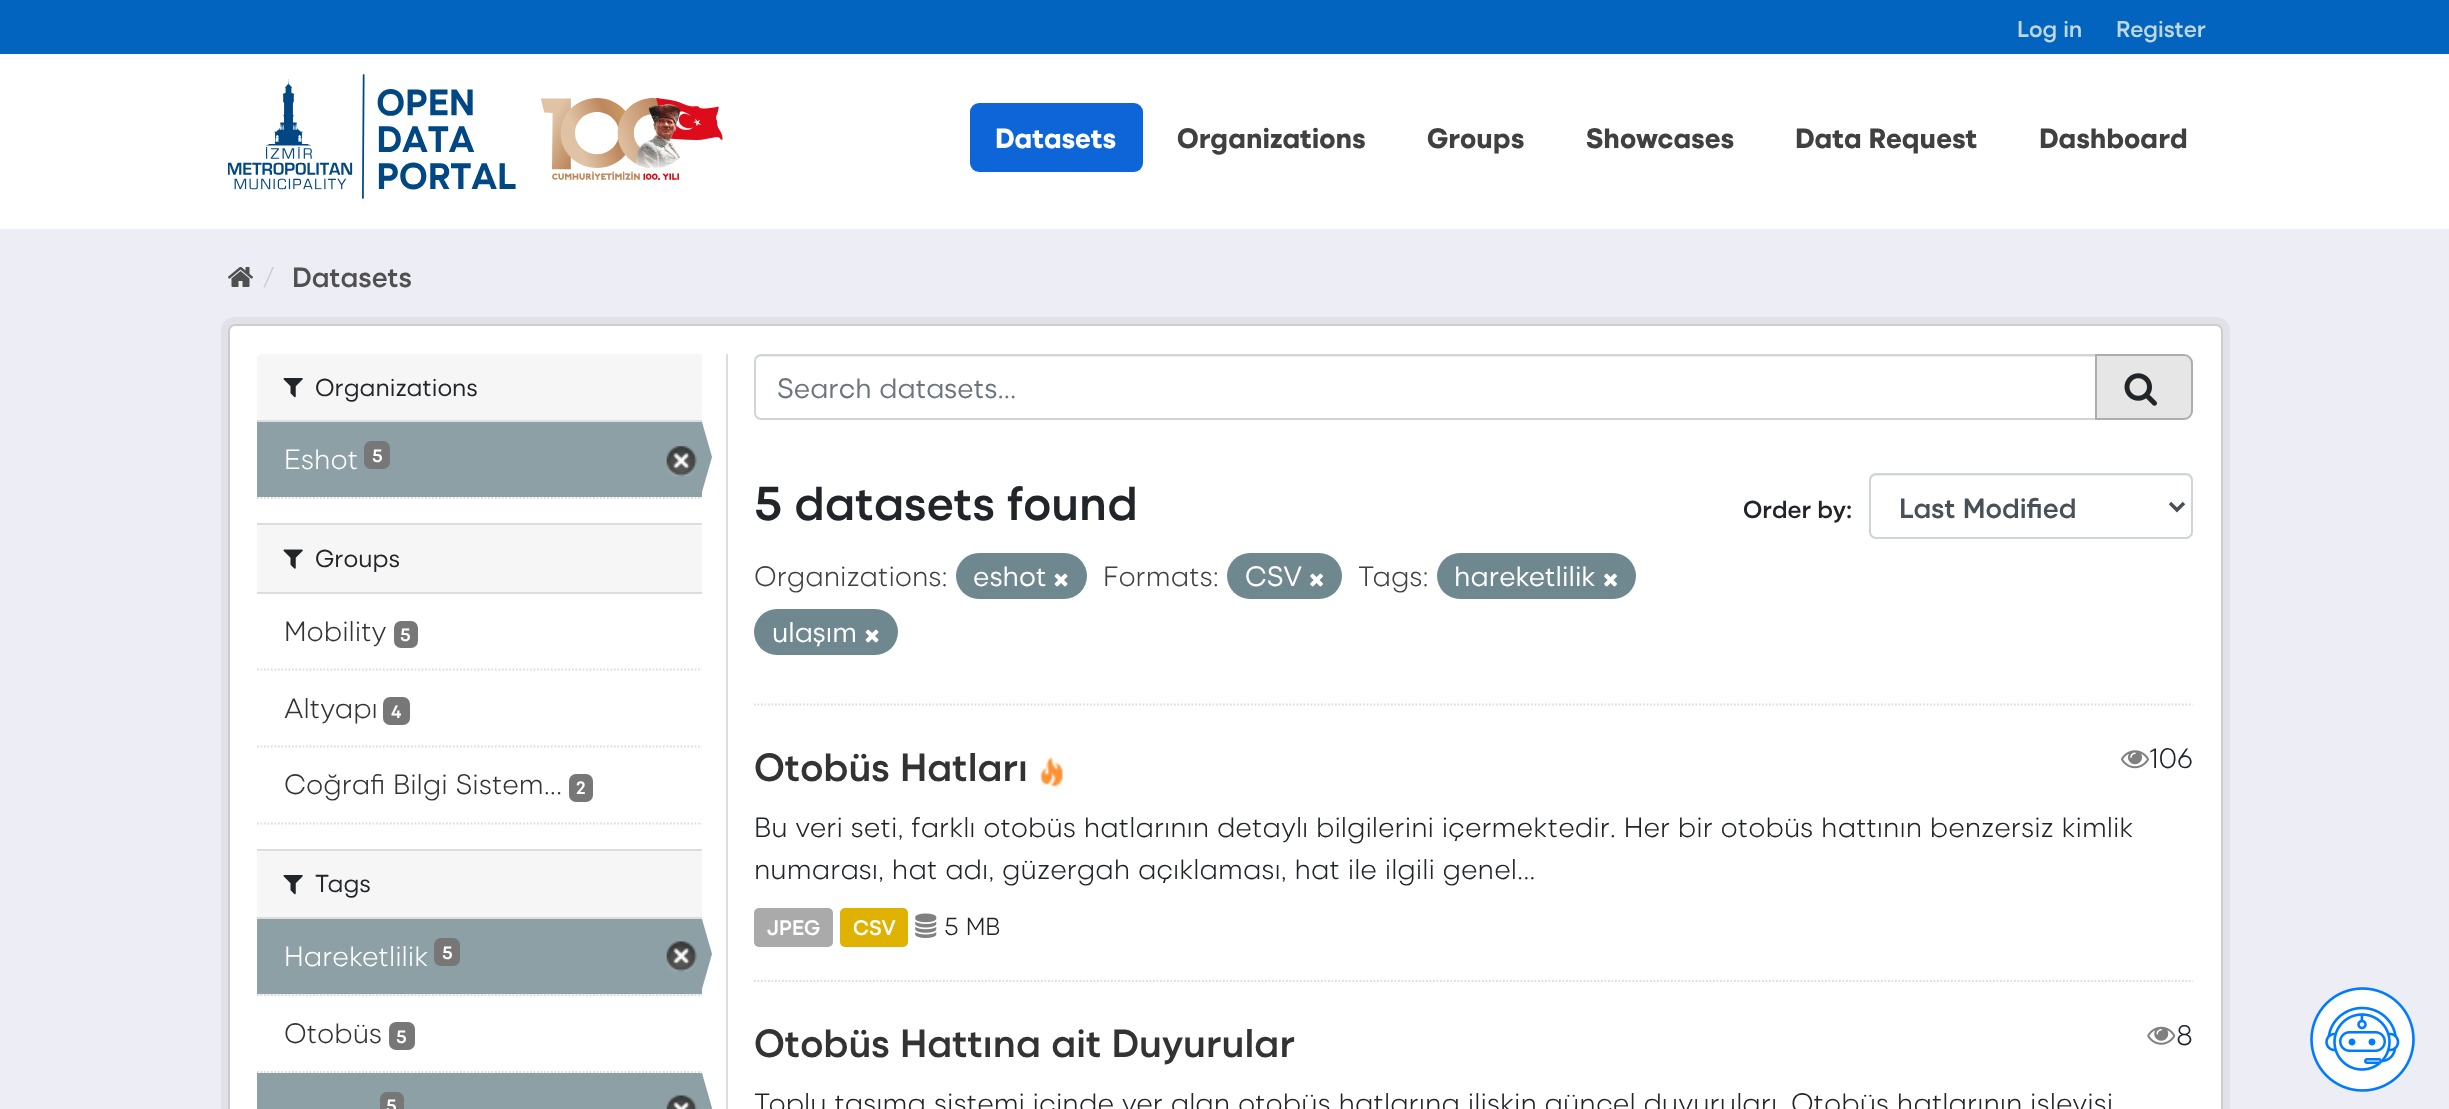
<!DOCTYPE html>
<meta charset="utf-8">
<style>body { margin: 0 } canvas { display: block }</style>
<canvas id="canvas" width="2449" height="1109"></canvas>
<img id="img1" src="img_01.png" hidden>
<img id="img2" src="img_02.png" hidden>
<img id="img3" src="img_03.png" hidden>
<img id="img4" src="img_04.png" hidden>
<img id="img5" src="img_05.png" hidden>
<img id="img6" src="img_06.png" hidden>
<img id="img7" src="img_07.png" hidden>
<img id="img8" src="img_08.png" hidden>
<img id="img9" src="img_09.png" hidden>
<img id="img10" src="img_10.png" hidden>
<img id="img11" src="img_11.png" hidden>
<img id="img12" src="img_12.png" hidden>
<img id="img13" src="img_13.png" hidden>
<img id="img14" src="img_14.png" hidden>
<img id="img15" src="img_15.png" hidden>
<script>
window.onload = function () {
	const canvas = document.getElementById("canvas");
	const ctx = canvas.getContext("2d");
	ctx.miterLimit = 4;
	ctx.fontKerning = "normal";
	function txt(s, x, y) {
		ctx.fillText(s, x, y);
	}
	function fill(x, y, w, h) {
		ctx.fillRect(x, y, w, h);
	}
	function round(x, y, w, h, r) {
		ctx.beginPath();
		ctx.roundRect(x, y, w, h, r);
		ctx.fill();
	}
	function img(id, x, y, w, h) {
		ctx.drawImage(document.getElementById(id), x, y, w, h);
	}

	ctx.fillStyle = "#0264BF";
	fill(0, 0, 2449, 1109);
	ctx.fillStyle = "#FFFFFF";
	fill(0, 54, 2449, 175);
	img("img1", 228, 74, 495, 125);
	ctx.fillStyle = "#0D65D8";
	round(970, 103, 173, 69, 9);
	ctx.fillStyle = "#EDEEF5";
	fill(0, 229, 2449, 880);
	img("img2", 228, 267, 25, 20);
	ctx.beginPath();
	ctx.roundRect(224.5, 320.5, 2002, 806, 10.5);
	ctx.strokeStyle = "#E1E2E9";
	ctx.lineWidth = 7;
	ctx.stroke();
	ctx.fillStyle = "#FFFFFF";
	ctx.beginPath();
	ctx.roundRect(229, 325, 1993, 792, 6);
	ctx.fill();
	ctx.strokeStyle = "#CCCCCC";
	ctx.lineWidth = 2;
	ctx.stroke();
	ctx.fillStyle = "#F6F6F6";
	ctx.beginPath();
	ctx.roundRect(257, 354, 445, 68, [5, 0, 0, 0]);
	ctx.fill();
	ctx.fillStyle = "#DDDDDD";
	fill(257, 420, 445, 2);
	img("img3", 283, 378, 20, 20);
	ctx.fillStyle = "#8CA0A6";
	fill(257, 422, 445, 75);
	ctx.fillStyle = "#777777";
	round(364, 441, 26, 28, 7);
	img("img4", 666, 446, 31, 30);
	ctx.fillStyle = "#8CA0A6";
	ctx.beginPath();
	ctx.moveTo(702, 492);
	ctx.lineTo(702, 422);
	ctx.lineTo(712, 457);
	ctx.closePath();
	ctx.fill();
	ctx.beginPath();
	ctx.moveTo(257, 498);
	ctx.lineTo(702, 498);
	ctx.strokeStyle = "#DDDDDD";
	ctx.lineWidth = 1.8;
	ctx.setLineDash([1.75, 1.75]);
	ctx.stroke();
	ctx.fillStyle = "#F6F6F6";
	fill(257, 525, 445, 67);
	ctx.fillStyle = "#DDDDDD";
	fill(257, 523, 445, 2);
	fill(257, 592, 445, 2);
	img("img5", 283, 549, 20, 20);
	ctx.beginPath();
	ctx.moveTo(257, 669.5);
	ctx.lineTo(702, 669.5);
	ctx.stroke();
	ctx.fillStyle = "#777777";
	round(394, 621, 24, 27, 7);
	ctx.beginPath();
	ctx.moveTo(257, 746.5);
	ctx.lineTo(702, 746.5);
	ctx.stroke();
	round(383, 697, 27, 28, 7);
	round(569, 774, 24, 28, 7);
	ctx.beginPath();
	ctx.moveTo(257, 823.5);
	ctx.lineTo(702, 823.5);
	ctx.stroke();
	ctx.fillStyle = "#F6F6F6";
	fill(257, 851, 445, 66);
	ctx.fillStyle = "#DDDDDD";
	fill(257, 849, 445, 2);
	fill(257, 917, 445, 2);
	img("img3", 283, 875, 20, 20);
	ctx.fillStyle = "#F6F6F6";
	fill(257, 994, 445, 2);
	ctx.beginPath();
	ctx.moveTo(257, 995);
	ctx.lineTo(702, 995);
	ctx.stroke();
	ctx.fillStyle = "#8CA0A6";
	fill(257, 919, 445, 75);
	ctx.fillStyle = "#777777";
	round(434, 938, 26, 28, 7);
	img("img6", 666, 941, 31, 31);
	ctx.fillStyle = "#8CA0A6";
	ctx.beginPath();
	ctx.moveTo(702, 989);
	ctx.lineTo(702, 919);
	ctx.lineTo(712, 954);
	ctx.closePath();
	ctx.fill();
	ctx.beginPath();
	ctx.moveTo(257, 1072);
	ctx.lineTo(702, 1072);
	ctx.stroke();
	ctx.fillStyle = "#777777";
	round(389, 1022, 26, 28, 7);
	ctx.fillStyle = "#8CA0A6";
	fill(257, 1073, 445, 36);
	ctx.fillStyle = "#777777";
	round(380, 1092, 24, 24, 7);
	img("img7", 666, 1095, 31, 14);
	ctx.fillStyle = "#8CA0A6";
	ctx.beginPath();
	ctx.moveTo(702, 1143);
	ctx.lineTo(702, 1073);
	ctx.lineTo(712, 1108);
	ctx.closePath();
	ctx.fill();
	ctx.fillStyle = "#DDDDDD";
	fill(726, 354, 2, 755);
	ctx.beginPath();
	ctx.moveTo(754, 704.5);
	ctx.lineTo(2193, 704.5);
	ctx.stroke();
	ctx.fillStyle = "#ECECEC";
	ctx.beginPath();
	ctx.moveTo(761, 357);
	ctx.lineTo(2095, 357);
	ctx.lineTo(2095, 355);
	ctx.lineTo(761, 355);
	ctx.bezierCurveTo(757, 355, 756, 359, 756, 362);
	ctx.bezierCurveTo(756, 359, 758, 357, 761, 357);
	ctx.closePath();
	ctx.fill();
	ctx.beginPath();
	ctx.roundRect(755, 355, 1341, 64, [6, 0, 0, 6]);
	ctx.strokeStyle = "#CED4DA";
	ctx.lineWidth = 2;
	ctx.setLineDash([]);
	ctx.stroke();
	ctx.fillStyle = "#E6E6E6";
	ctx.beginPath();
	ctx.roundRect(2096, 355, 96, 64, [0, 8, 8, 0]);
	ctx.fill();
	ctx.strokeStyle = "#ADADAD";
	ctx.stroke();
	img("img8", 2124, 373, 33, 33);
	ctx.fillStyle = "#ECECEC";
	ctx.beginPath();
	ctx.moveTo(1876, 476);
	ctx.lineTo(2186, 476);
	ctx.bezierCurveTo(2189, 476, 2191, 478, 2191, 481);
	ctx.lineTo(2191, 479);
	ctx.bezierCurveTo(2191, 476, 2189, 474, 2186, 474);
	ctx.lineTo(1876, 474);
	ctx.bezierCurveTo(1873, 474, 1871, 476, 1871, 479);
	ctx.lineTo(1871, 481);
	ctx.bezierCurveTo(1871, 478, 1873, 476, 1876, 476);
	ctx.closePath();
	ctx.fill();
	ctx.beginPath();
	ctx.roundRect(1870, 474, 322, 64, 6);
	ctx.strokeStyle = "#CED4DA";
	ctx.stroke();
	ctx.beginPath();
	ctx.moveTo(2170, 503);
	ctx.lineTo(2177, 510);
	ctx.lineTo(2184, 503);
	ctx.strokeStyle = "#495057";
	ctx.lineWidth = 3.5;
	ctx.stroke();
	ctx.fillStyle = "#6F8890";
	round(956, 553, 131, 46, 23);
	img("img9", 1054, 573, 14, 14);
	round(1227, 553, 115, 46, 23);
	img("img10", 1310, 573, 13, 14);
	round(1437, 553, 199, 46, 23);
	img("img10", 1604, 573, 13, 14);
	round(754, 609, 144, 46, 23);
	img("img9", 865, 629, 14, 14);
	ctx.beginPath();
	ctx.moveTo(754, 981);
	ctx.lineTo(2193, 981);
	ctx.strokeStyle = "#DDDDDD";
	ctx.lineWidth = 1.8;
	ctx.setLineDash([1.75, 1.75]);
	ctx.stroke();
	img("img11", 1040, 757, 23, 30);
	img("img12", 2121, 750, 28, 19);
	ctx.fillStyle = "#AAAAAA";
	round(754, 908, 79, 39, 5);
	ctx.fillStyle = "#DFB100";
	round(840, 908, 68, 39, 5);
	img("img13", 915, 913, 22, 25);
	img("img14", 2147, 1026, 29, 19);
	img("img15", 2310, 987, 105, 105);
	ctx.font = "600 23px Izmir";
	ctx.fillStyle = "#BFD7DE";
	txt("Log in", 2017, 37);
	txt("Register", 2116, 37);
	ctx.font = "800 28px Izmir";
	ctx.fillStyle = "#FFFFFF";
	txt("Datasets", 995, 148);
	ctx.fillStyle = "#404040";
	txt("Organizations", 1177, 148);
	txt("Groups", 1427, 148);
	txt("Showcases", 1586, 148);
	txt("Data Request", 1795, 148);
	txt("Dashboard", 2039, 148);
	ctx.font = "300 28px Izmir";
	ctx.fillStyle = "#CCCCCC";
	txt("/", 262, 287);
	ctx.font = "600 28px Izmir";
	ctx.fillStyle = "#505050";
	txt("Datasets", 292, 287);
	ctx.font = "24.5px Izmir";
	ctx.fillStyle = "#212529";
	txt("Organizations", 315, 396);
	ctx.font = "300 28px Izmir";
	ctx.fillStyle = "#FFFFFF";
	txt("Eshot", 284, 469);
	ctx.font = "600 18px Izmir";
	txt("5", 372, 462);
	ctx.font = "24.5px Izmir";
	ctx.fillStyle = "#212529";
	txt("Groups", 315, 567);
	ctx.font = "300 28px Izmir";
	ctx.fillStyle = "#333333";
	txt("Mobility", 284, 641);
	ctx.font = "600 18px Izmir";
	ctx.fillStyle = "#FFFFFF";
	txt("5", 400, 641);
	ctx.font = "300 28px Izmir";
	ctx.fillStyle = "#333333";
	txt("Altyapı", 284, 718);
	ctx.font = "600 18px Izmir";
	ctx.fillStyle = "#FFFFFF";
	txt("4", 391, 718);
	ctx.font = "300 28px Izmir";
	ctx.fillStyle = "#333333";
	txt("Coğrafi Bilgi Sistem...", 284, 794);
	ctx.font = "600 18px Izmir";
	ctx.fillStyle = "#FFFFFF";
	txt("2", 576, 794);
	ctx.font = "24.5px Izmir";
	ctx.fillStyle = "#212529";
	txt("Tags", 315, 892);
	ctx.font = "300 28px Izmir";
	ctx.fillStyle = "#FFFFFF";
	txt("Hareketlilik", 284, 966);
	ctx.font = "600 18px Izmir";
	txt("5", 442, 959);
	ctx.font = "300 28px Izmir";
	ctx.fillStyle = "#333333";
	txt("Otobüs", 284, 1043);
	ctx.font = "600 18px Izmir";
	ctx.fillStyle = "#FFFFFF";
	txt("5", 396, 1043);
	txt("5", 386, 1112);
	ctx.font = "28px Izmir";
	ctx.fillStyle = "#6C757D";
	txt("Search datasets...", 777, 398);
	ctx.font = "600 47.5px Izmir";
	ctx.fillStyle = "#212529";
	txt("5 datasets found", 754, 520);
	ctx.font = "600 24.5px Izmir";
	txt("Order by:", 1743, 518);
	ctx.font = "600 28px Izmir";
	ctx.fillStyle = "#495057";
	txt("Last Modified", 1899, 518);
	ctx.font = "300 28px Izmir";
	ctx.fillStyle = "#404040";
	txt("Organizations:", 754, 586);
	ctx.font = "28px Izmir";
	ctx.fillStyle = "#FFFFFF";
	txt("eshot", 973, 586);
	ctx.font = "300 28px Izmir";
	ctx.fillStyle = "#404040";
	txt("Formats:", 1103, 586);
	ctx.font = "28px Izmir";
	ctx.fillStyle = "#FFFFFF";
	txt("CSV", 1245, 586);
	ctx.font = "300 28px Izmir";
	ctx.fillStyle = "#404040";
	txt("Tags:", 1358, 586);
	ctx.font = "28px Izmir";
	ctx.fillStyle = "#FFFFFF";
	txt("hareketlilik", 1454, 586);
	txt("ulaşım", 772, 642);
	ctx.font = "600 39.25px Izmir";
	ctx.fillStyle = "#333333";
	txt("Otobüs Hatları", 754, 781);
	ctx.font = "300 28px Izmir";
	ctx.fillStyle = "#212529";
	txt("106", 2149, 768);
	txt("Bu veri seti, farklı otobüs hatlarının detaylı bilgilerini içermektedir. Her bir otobüs hattının benzersiz kimlik", 754, 837);
	txt("numarası, hat adı, güzergah açıklaması, hat ile ilgili genel...", 754, 879);
	ctx.font = "600 21px Izmir";
	ctx.fillStyle = "#FFFFFF";
	txt("JPEG", 767, 935);
	txt("CSV", 853, 935);
	ctx.font = "300 24.5px Izmir";
	ctx.fillStyle = "#212529";
	txt("5 MB", 944, 935);
	ctx.font = "600 39.25px Izmir";
	ctx.fillStyle = "#333333";
	txt("Otobüs Hattına ait Duyurular", 754, 1057);
	ctx.font = "300 28px Izmir";
	ctx.fillStyle = "#212529";
	txt("8", 2176, 1045);
	txt("Toplu taşıma sistemi içinde yer alan otobüs hatlarına ilişkin güncel duyuruları, Otobüs hatlarının işleyişi", 754, 1113);
};
</script>
